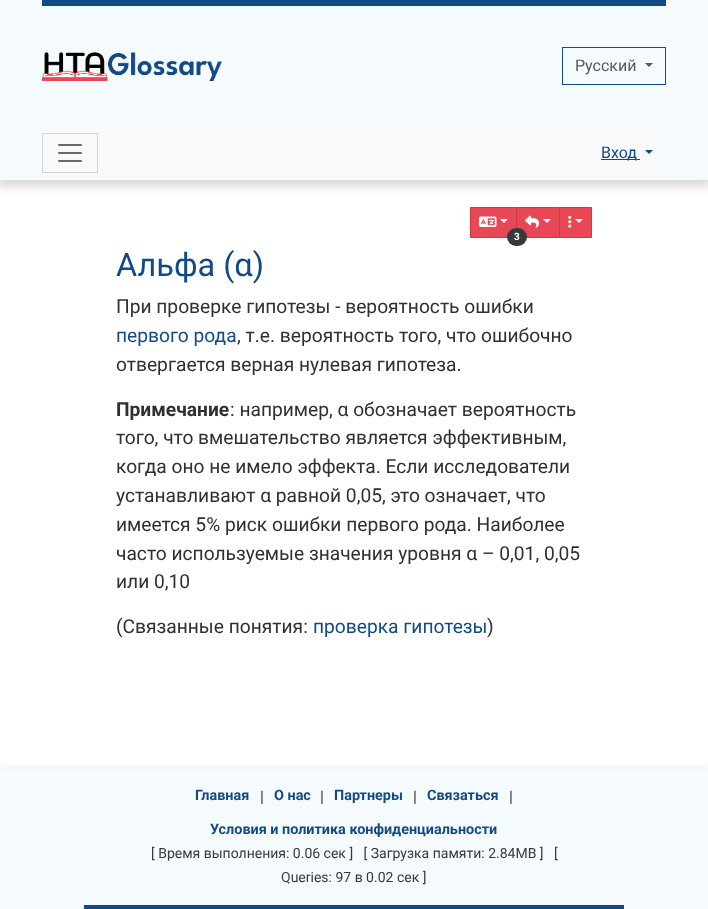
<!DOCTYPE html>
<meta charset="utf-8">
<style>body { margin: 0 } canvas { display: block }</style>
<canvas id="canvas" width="708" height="909"></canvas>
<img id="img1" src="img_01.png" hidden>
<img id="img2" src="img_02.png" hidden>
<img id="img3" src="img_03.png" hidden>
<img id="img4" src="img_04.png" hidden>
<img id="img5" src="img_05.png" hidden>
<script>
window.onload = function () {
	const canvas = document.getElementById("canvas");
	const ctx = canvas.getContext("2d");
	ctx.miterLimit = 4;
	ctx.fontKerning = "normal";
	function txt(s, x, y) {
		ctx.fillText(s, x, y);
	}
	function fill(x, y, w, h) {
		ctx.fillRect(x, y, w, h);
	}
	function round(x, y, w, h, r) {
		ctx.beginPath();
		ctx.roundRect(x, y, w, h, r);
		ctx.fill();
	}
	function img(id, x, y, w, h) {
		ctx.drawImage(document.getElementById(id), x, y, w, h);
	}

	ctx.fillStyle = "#FFFFFF";
	fill(0, 0, 708, 909);
	ctx.fillStyle = "rgba(68, 68, 68, 0.2)";
	ctx.filter = "blur(5px)";
	ctx.beginPath();
	ctx.rect(-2, 3, 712, 184);
	ctx.fill();
	ctx.filter = "none";
	ctx.fillStyle = "#F5FAFC";
	fill(0, 0, 708, 180);
	ctx.fillStyle = "#124987";
	fill(42, 0, 624, 6);
	img("img1", 42, 52, 180, 29);
	ctx.strokeStyle = "#124987";
	ctx.strokeRect(562.5, 47.5, 103, 37);
	ctx.fillStyle = "#565858";
	ctx.beginPath();
	ctx.moveTo(645, 63);
	ctx.lineTo(653, 63);
	ctx.lineTo(649, 67);
	ctx.closePath();
	ctx.fill();
	ctx.fillStyle = "#F8F9FA";
	fill(42, 126, 624, 54);
	ctx.fillStyle = "#124987";
	fill(601, 159, 39, 1);
	ctx.beginPath();
	ctx.moveTo(645, 150);
	ctx.lineTo(653, 150);
	ctx.lineTo(649, 154);
	ctx.closePath();
	ctx.fill();
	ctx.strokeStyle = "#D3D4D5";
	ctx.strokeRect(42.5, 133.5, 55, 39);
	img("img2", 58, 144, 24, 18);
	ctx.fillStyle = "#E84855";
	ctx.beginPath();
	ctx.rect(470.5, 207.5, 46, 30);
	ctx.fill();
	ctx.strokeStyle = "#D33643";
	ctx.stroke();
	img("img3", 479, 216, 18, 11);
	ctx.fillStyle = "#FFFFFF";
	ctx.beginPath();
	ctx.moveTo(500, 219);
	ctx.lineTo(508, 219);
	ctx.lineTo(504, 223);
	ctx.closePath();
	ctx.fill();
	ctx.fillStyle = "#E84855";
	ctx.beginPath();
	ctx.rect(516.5, 207.5, 43, 30);
	ctx.fill();
	ctx.stroke();
	ctx.beginPath();
	ctx.rect(559.5, 207.5, 32, 30);
	ctx.fill();
	ctx.stroke();
	img("img4", 568, 215, 4, 13);
	ctx.fillStyle = "#FFFFFF";
	ctx.beginPath();
	ctx.moveTo(575, 219);
	ctx.lineTo(583, 219);
	ctx.lineTo(579, 223);
	ctx.closePath();
	ctx.fill();
	img("img5", 525, 215, 14, 13);
	ctx.beginPath();
	ctx.moveTo(543, 219);
	ctx.lineTo(551, 219);
	ctx.lineTo(547, 223);
	ctx.closePath();
	ctx.fill();
	ctx.fillStyle = "#373A3C";
	round(507, 228, 20, 18, 9);
	ctx.fillStyle = "rgba(68, 68, 68, 0.2)";
	ctx.filter = "blur(5px)";
	ctx.beginPath();
	ctx.rect(-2, 771, 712, 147);
	ctx.fill();
	ctx.filter = "none";
	ctx.fillStyle = "#F5FAFC";
	fill(0, 769, 708, 140);
	ctx.fillStyle = "#F4F4F4";
	fill(0, 768, 708, 1);
	ctx.fillStyle = "#124987";
	fill(84, 905, 540, 4);
	ctx.font = "16px Roboto";
	ctx.fillStyle = "#565858";
	txt("Pусский", 575, 71);
	ctx.fillStyle = "#124987";
	txt("Вход", 601, 158);
	ctx.font = "bold 10px Roboto";
	ctx.fillStyle = "#FFFFFF";
	txt("3", 514, 240);
	ctx.font = "32.5px Roboto";
	ctx.fillStyle = "#124987";
	txt("Альфа (α)", 116, 276);
	ctx.font = "19.2px Roboto";
	ctx.fillStyle = "#303030";
	txt("При проверке гипотезы - вероятность ошибки", 116, 313);
	ctx.fillStyle = "#124987";
	txt("первого рода", 116, 342);
	ctx.fillStyle = "#303030";
	txt(", т.е. вероятность того, что ошибочно", 237, 342);
	txt("отвергается верная нулевая гипотеза.", 116, 371);
	ctx.font = "bold 19.2px Roboto";
	txt("Примечание", 116, 416);
	ctx.font = "19.2px Roboto";
	txt(": например, α обозначает вероятность", 230, 416);
	txt("того, что вмешательство является эффективным,", 116, 444);
	txt("когда оно не имело эффекта. Если исследователи", 116, 473);
	txt("устанавливают α равной 0,05, это означает, что", 116, 502);
	txt("имеется 5% риск ошибки первого рода. Наиболее", 116, 531);
	txt("часто используемые значения уровня α – 0,01, 0,05", 116, 560);
	txt("или 0,10", 116, 588);
	txt("(Связанные понятия:", 116, 633);
	ctx.fillStyle = "#124987";
	txt("проверка гипотезы", 313, 633);
	ctx.fillStyle = "#303030";
	txt(")", 487, 633);
	ctx.font = "bold 14.4px Roboto";
	ctx.fillStyle = "#124987";
	txt("Главная", 195, 800);
	ctx.font = "16px Roboto";
	ctx.fillStyle = "#373A3C";
	txt("|", 260, 802);
	ctx.font = "bold 14.4px Roboto";
	ctx.fillStyle = "#124987";
	txt("О нас", 274, 800);
	ctx.font = "16px Roboto";
	ctx.fillStyle = "#373A3C";
	txt("|", 320, 802);
	ctx.font = "bold 14.4px Roboto";
	ctx.fillStyle = "#124987";
	txt("Партнеры", 334, 800);
	ctx.font = "16px Roboto";
	ctx.fillStyle = "#373A3C";
	txt("|", 413, 802);
	ctx.font = "bold 14.4px Roboto";
	ctx.fillStyle = "#124987";
	txt("Связаться", 427, 800);
	ctx.font = "16px Roboto";
	ctx.fillStyle = "#373A3C";
	txt("|", 509, 802);
	ctx.font = "bold 14.4px Roboto";
	ctx.fillStyle = "#124987";
	txt("Условия и политика конфиденциальности", 210, 834);
	ctx.font = "14px Roboto";
	ctx.fillStyle = "#373A3C";
	txt("[ Время выполнения: 0.06 сек ]   [ Загрузка памяти: 2.84MB ]   [", 151, 858);
	txt("Queries: 97 в 0.02 сек ]", 281, 882);
};
</script>
